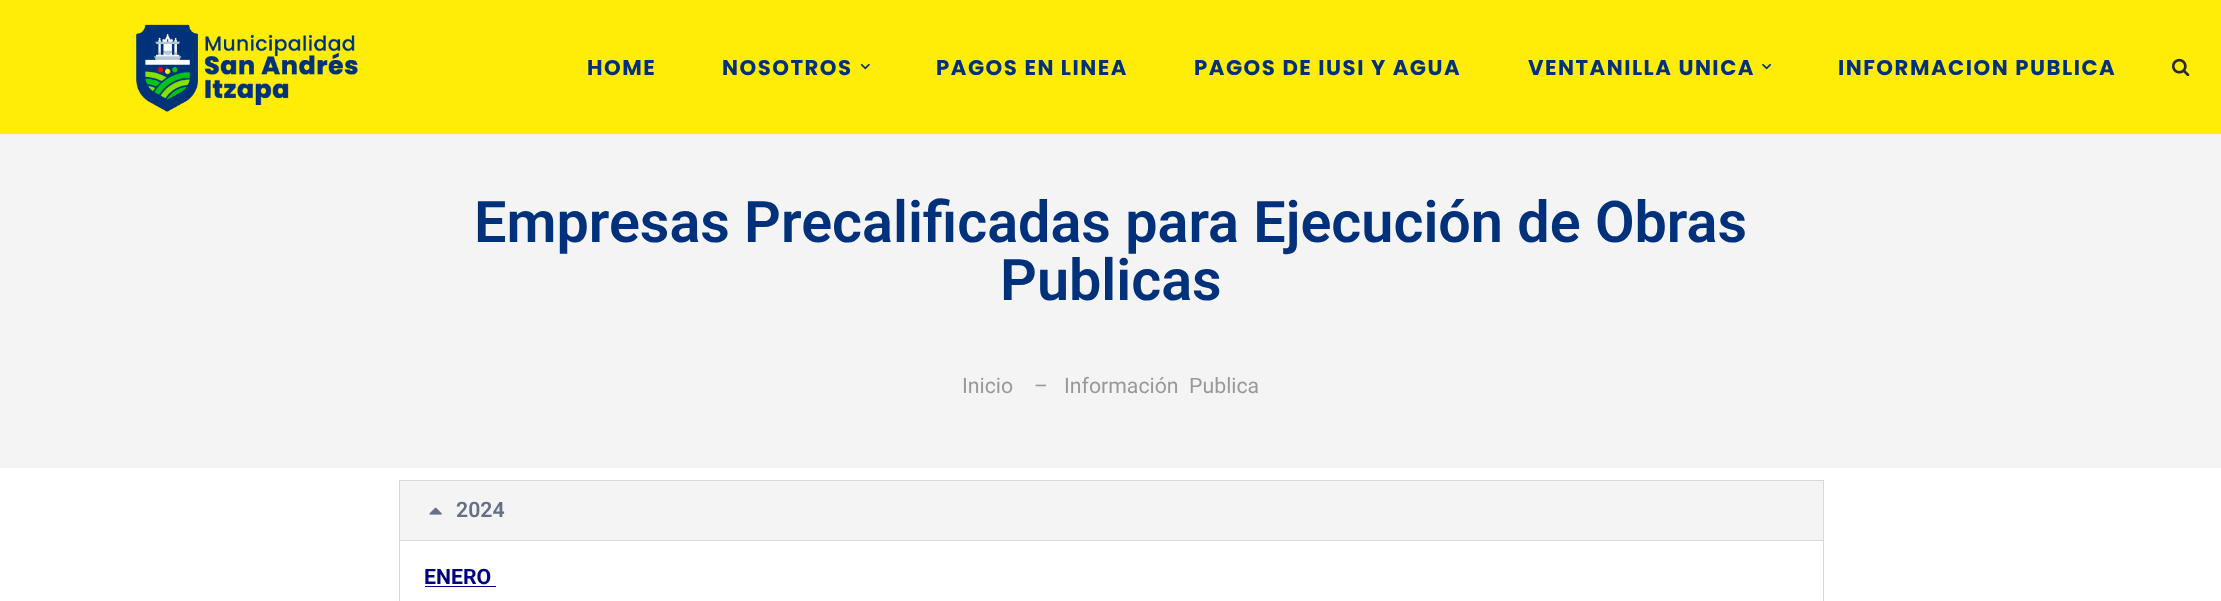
<!DOCTYPE html>
<meta charset="utf-8">
<style>body { margin: 0 } canvas { display: block }</style>
<canvas id="canvas" width="2221" height="601"></canvas>
<img id="img1" src="img_01.png" hidden>
<img id="img2" src="img_02.png" hidden>
<img id="img3" src="img_03.png" hidden>
<img id="img4" src="img_04.png" hidden>
<img id="img5" src="img_05.png" hidden>
<script>
window.onload = function () {
	const canvas = document.getElementById("canvas");
	const ctx = canvas.getContext("2d");
	ctx.miterLimit = 4;
	ctx.fontKerning = "normal";
	function txt(s, x, y) {
		ctx.fillText(s, x, y);
	}
	function fill(x, y, w, h) {
		ctx.fillRect(x, y, w, h);
	}
	function img(id, x, y, w, h) {
		ctx.drawImage(document.getElementById(id), x, y, w, h);
	}

	ctx.fillStyle = "#FFFFFF";
	fill(0, 0, 2221, 601);
	ctx.fillStyle = "#FFED08";
	fill(0, 0, 2221, 134);
	img("img1", 136, 24, 222, 88);
	img("img2", 860, 63, 10, 7);
	img("img3", 1762, 63, 9, 7);
	img("img4", 2171, 58, 19, 18);
	ctx.fillStyle = "#F4F4F4";
	fill(0, 134, 2221, 334);
	ctx.strokeStyle = "#D5D8DC";
	ctx.strokeRect(399.5, 480.5, 1424, 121);
	fill(400, 481, 1423, 59);
	img("img5", 429, 507, 13, 8);
	ctx.fillStyle = "#D5D8DC";
	fill(400, 540, 1423, 1);
	ctx.fillStyle = "#000080";
	fill(425, 586, 71, 1);
	ctx.letterSpacing = "1.5px";
	ctx.font = "bold 21.25px Poppins";
	ctx.fillStyle = "#00317A";
	txt("HOME", 587, 75);
	txt("NOSOTROS", 722, 75);
	txt("PAGOS EN LINEA", 936, 75);
	txt("PAGOS DE IUSI Y AGUA", 1194, 75);
	txt("VENTANILLA UNICA", 1528, 75);
	txt("INFORMACION PUBLICA", 1838, 75);
	ctx.letterSpacing = "0px";
	ctx.font = "600 57.5px Roboto";
	txt("Empresas Precalificadas para Ejecución de Obras", 474, 242);
	txt("Publicas", 1000, 300);
	ctx.font = "21.25px Roboto";
	ctx.fillStyle = "#999999";
	txt("Inicio", 962, 393);
	txt("–", 1034, 393);
	txt("Información  Publica", 1064, 393);
	ctx.font = "600 21.25px Roboto";
	ctx.fillStyle = "#666F88";
	txt("2024", 456, 517);
	ctx.font = "bold 21.25px Roboto";
	ctx.fillStyle = "#000080";
	txt("ENERO", 424, 584);
};
</script>
